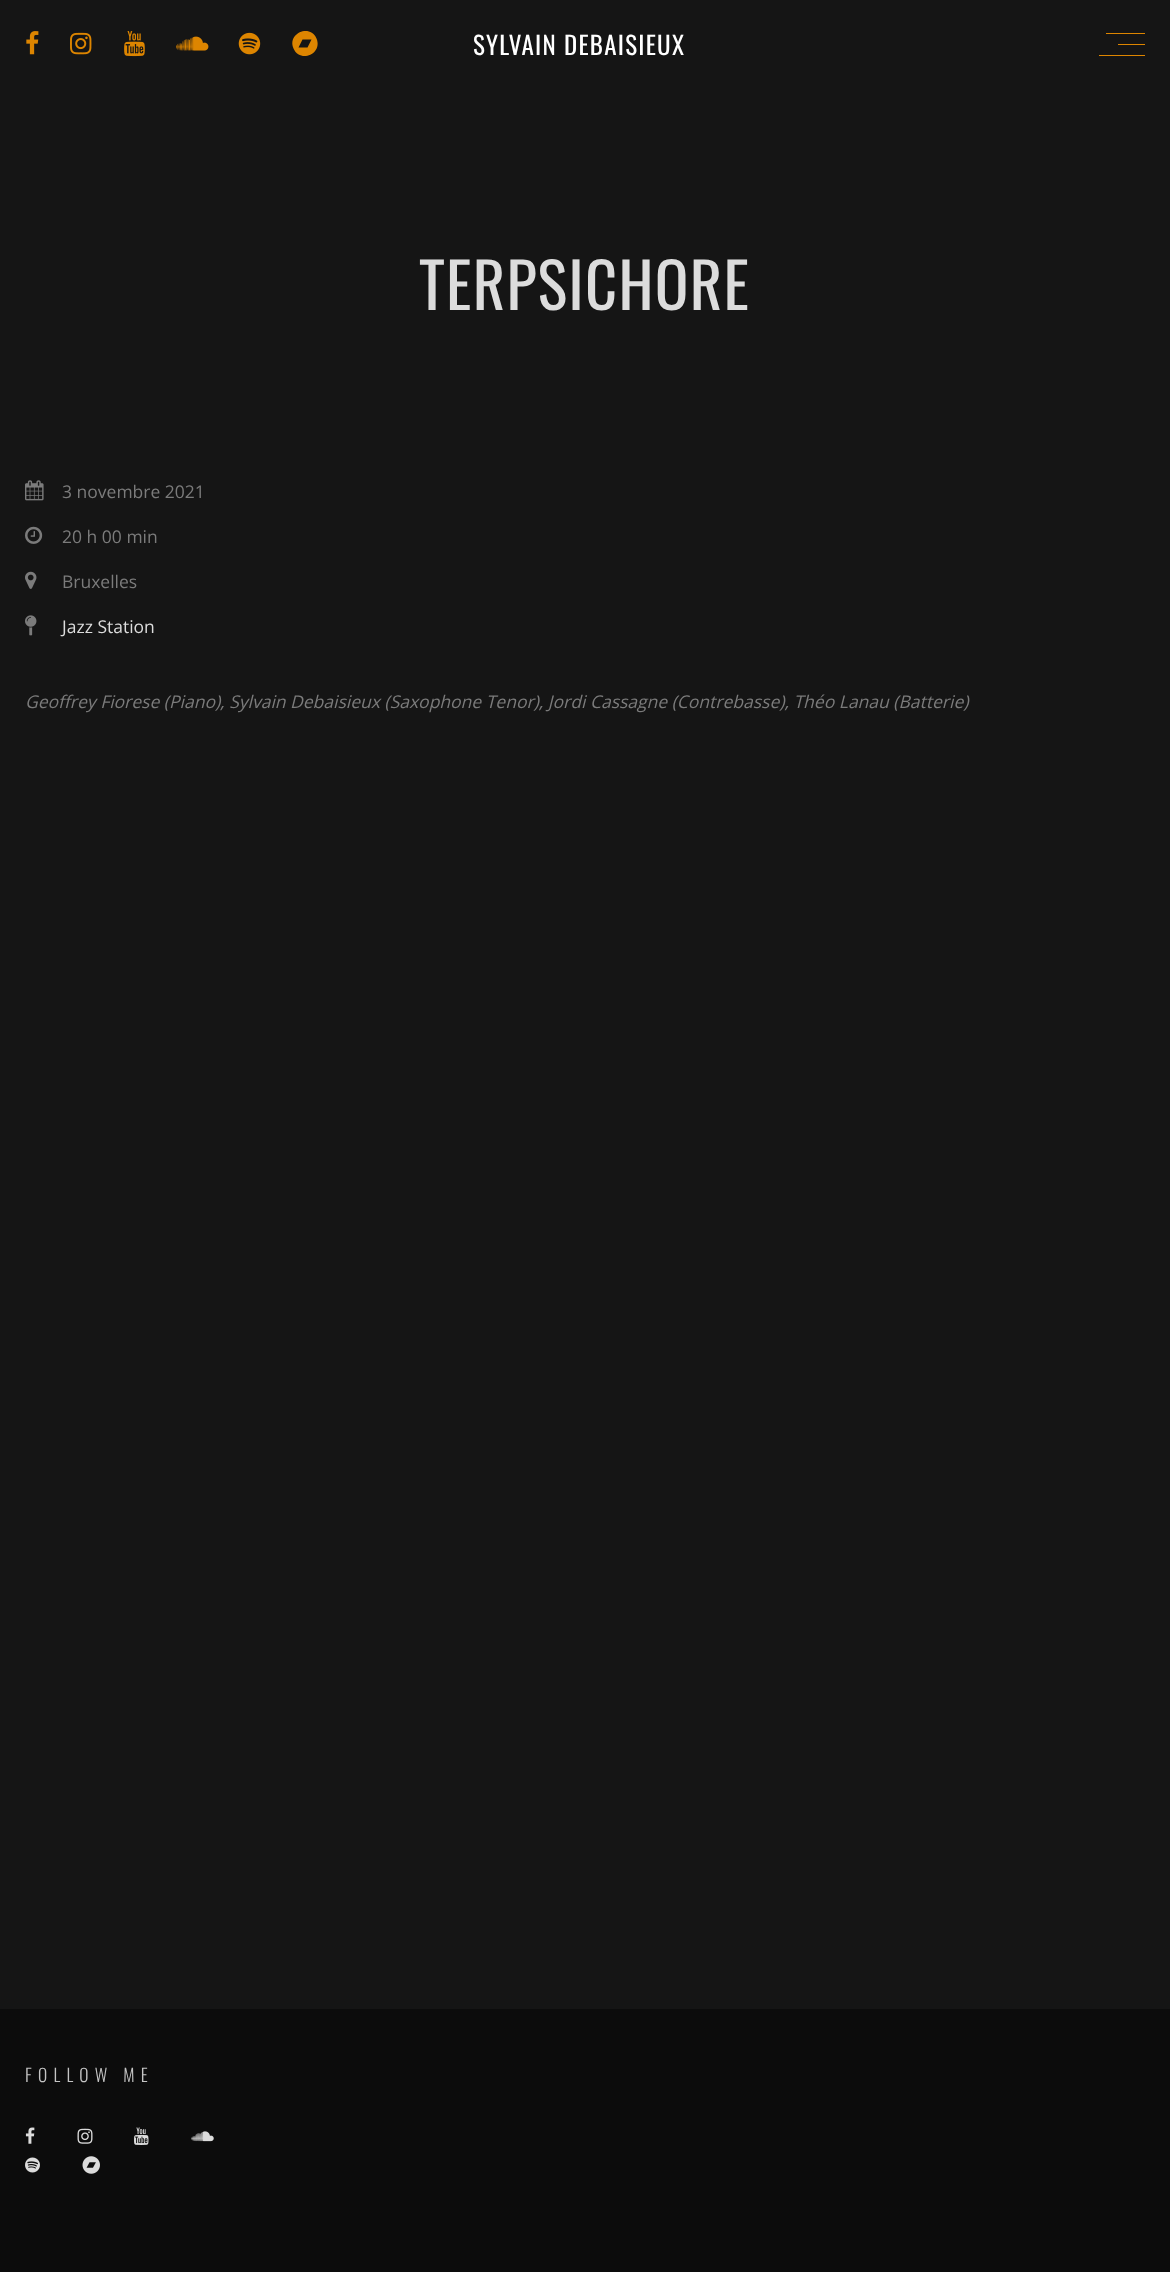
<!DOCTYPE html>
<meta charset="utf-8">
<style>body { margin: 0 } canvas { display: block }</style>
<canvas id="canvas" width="1170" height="2272"></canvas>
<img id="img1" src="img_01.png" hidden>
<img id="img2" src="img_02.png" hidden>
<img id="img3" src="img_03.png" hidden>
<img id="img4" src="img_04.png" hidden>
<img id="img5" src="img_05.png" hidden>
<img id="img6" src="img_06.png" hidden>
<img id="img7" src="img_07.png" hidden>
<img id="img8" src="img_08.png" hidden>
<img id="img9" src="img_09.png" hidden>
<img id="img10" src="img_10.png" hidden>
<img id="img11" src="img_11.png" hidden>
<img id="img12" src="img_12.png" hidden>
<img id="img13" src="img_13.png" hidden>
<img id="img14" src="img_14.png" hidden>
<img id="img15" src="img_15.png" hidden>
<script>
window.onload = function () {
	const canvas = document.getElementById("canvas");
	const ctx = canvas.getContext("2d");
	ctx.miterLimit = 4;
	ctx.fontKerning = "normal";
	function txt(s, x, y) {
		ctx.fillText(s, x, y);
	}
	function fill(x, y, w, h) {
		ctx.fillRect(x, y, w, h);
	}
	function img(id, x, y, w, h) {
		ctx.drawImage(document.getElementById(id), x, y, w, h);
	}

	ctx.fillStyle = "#151515";
	fill(0, 0, 1170, 2272);
	img("img1", 26, 31, 13, 24);
	img("img2", 70, 32, 22, 23);
	img("img3", 124, 31, 21, 26);
	img("img4", 176, 36, 33, 15);
	img("img5", 238, 32, 23, 23);
	ctx.fillStyle = "#DD8500";
	ctx.beginPath();
	ctx.moveTo(307.5, 47.5);
	ctx.lineTo(311.5, 39.5);
	ctx.lineTo(302.5, 39.5);
	ctx.lineTo(298.5, 47.5);
	ctx.closePath();
	ctx.moveTo(316.5, 38.5);
	ctx.bezierCurveTo(323, 54, 300, 63.5, 293.5, 48.5);
	ctx.bezierCurveTo(287, 33.5, 310, 23.5, 316.5, 38.5);
	ctx.closePath();
	ctx.fill();
	fill(1106, 33, 39, 1);
	fill(1118, 44, 27, 1);
	fill(1099, 55, 46, 1);
	img("img6", 25, 480, 19, 21);
	img("img7", 25, 526, 18, 18);
	img("img8", 25, 571, 12, 18);
	img("img9", 25, 615, 12, 21);
	ctx.fillStyle = "#0C0C0C";
	fill(0, 2009, 1170, 263);
	img("img10", 25, 2127, 10, 17);
	img("img11", 77, 2128, 16, 16);
	img("img12", 134, 2127, 15, 18);
	img("img13", 191, 2131, 23, 11);
	img("img14", 25, 2157, 15, 16);
	img("img15", 82, 2156, 18, 18);
	ctx.letterSpacing = "1.25px";
	ctx.font = "25px Oswald";
	ctx.fillStyle = "#FFFFFF";
	txt("SYLVAIN DEBAISIEUX", 473, 55);
	ctx.font = "62.5px Oswald";
	ctx.fillStyle = "#DCDCDC";
	txt("TERPSICHORE", 419, 310);
	ctx.letterSpacing = "0px";
	ctx.font = "17.5px Open Sans";
	ctx.fillStyle = "#7B7B7B";
	txt("3 novembre 2021", 62, 498);
	txt("20 h 00 min", 62, 543);
	txt("Bruxelles", 62, 588);
	ctx.fillStyle = "#DCDCDC";
	txt("Jazz Station", 62, 633);
	ctx.font = "italic 17.5px Open Sans";
	ctx.fillStyle = "#7B7B7B";
	txt("Geoffrey Fiorese (Piano), Sylvain Debaisieux (Saxophone Tenor), Jordi Cassagne (Contrebasse), Théo Lanau (Batterie)", 25, 708);
	ctx.letterSpacing = "6.25px";
	ctx.font = "300 17.5px Oswald";
	ctx.fillStyle = "#C5C5C5";
	txt("FOLLOW ME", 25, 2082);
};
</script>
